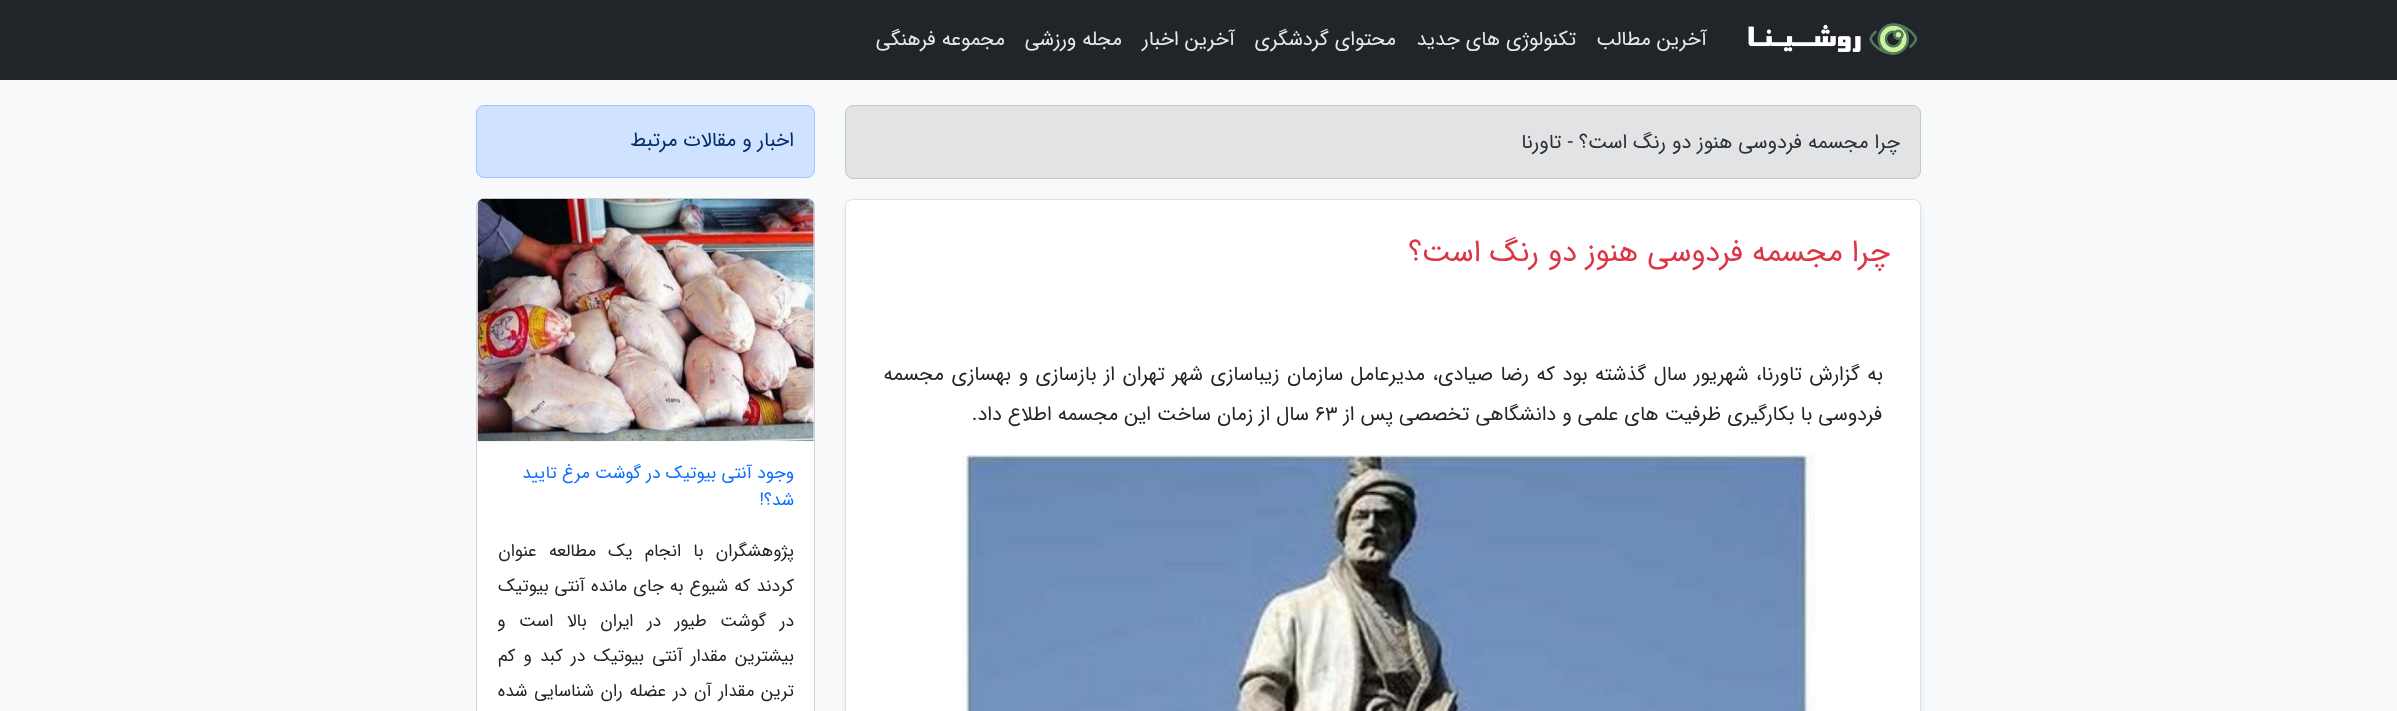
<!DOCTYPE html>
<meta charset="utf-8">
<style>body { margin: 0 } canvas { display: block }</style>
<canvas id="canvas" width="2397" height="711"></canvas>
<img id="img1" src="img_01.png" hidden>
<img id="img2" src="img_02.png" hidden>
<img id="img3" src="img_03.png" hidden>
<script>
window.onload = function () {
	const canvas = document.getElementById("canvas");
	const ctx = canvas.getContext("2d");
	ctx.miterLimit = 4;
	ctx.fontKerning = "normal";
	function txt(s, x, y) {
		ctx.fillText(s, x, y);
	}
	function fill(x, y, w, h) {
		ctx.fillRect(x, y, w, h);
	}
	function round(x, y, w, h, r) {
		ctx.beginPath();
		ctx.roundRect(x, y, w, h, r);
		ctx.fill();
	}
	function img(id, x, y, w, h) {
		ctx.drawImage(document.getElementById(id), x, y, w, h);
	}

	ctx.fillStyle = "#F8F9FA";
	fill(0, 0, 2397, 711);
	ctx.fillStyle = "#212529";
	fill(0, 0, 2397, 80);
	img("img1", 1748, 23, 169, 32);
	ctx.fillStyle = "#E2E3E5";
	ctx.beginPath();
	ctx.roundRect(845.5, 105.5, 1075, 73, 7.5);
	ctx.fill();
	ctx.strokeStyle = "#C4C8CB";
	ctx.stroke();
	ctx.fillStyle = "rgba(0, 0, 0, 0.07)";
	ctx.filter = "blur(2.5px)";
	ctx.beginPath();
	ctx.roundRect(845, 201, 1076, 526, 8);
	ctx.fill();
	ctx.filter = "none";
	ctx.fillStyle = "#FFFFFF";
	ctx.beginPath();
	ctx.roundRect(845.5, 199.5, 1075, 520, 7.5);
	ctx.fill();
	ctx.strokeStyle = "#DEE2E6";
	ctx.stroke();
	img("img2", 962, 455, 854, 256);
	ctx.fillStyle = "#CFE2FF";
	ctx.beginPath();
	ctx.roundRect(476.5, 105.5, 338, 72, 7.5);
	ctx.fill();
	ctx.strokeStyle = "#9EC5FE";
	ctx.stroke();
	ctx.fillStyle = "#FFFFFF";
	round(476, 198, 339, 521, 8);
	ctx.beginPath();
	ctx.roundRect(476.5, 198.5, 338, 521, 7.5);
	ctx.strokeStyle = "rgba(0, 0, 0, 0.18)";
	ctx.stroke();
	img("img3", 477, 198, 337, 244);
	ctx.direction = "rtl";
	ctx.font = "20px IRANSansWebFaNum";
	ctx.fillStyle = "#E9E9EA";
	txt("آخرین مطالب", 1707, 45);
	txt("تکنولوژی های جدید", 1576, 45);
	txt("محتوای گردشگری", 1396, 45);
	txt("آخرین اخبار", 1235, 45);
	txt("مجله ورزشی", 1122, 45);
	txt("مجموعه فرهنگی", 1005, 45);
	ctx.fillStyle = "#2B2F32";
	txt("چرا مجسمه فردوسی هنوز دو رنگ است؟ - تاورنا", 1900, 148);
	ctx.font = "30px IRANSansWebFaNum";
	ctx.fillStyle = "#DC3545";
	txt("چرا مجسمه فردوسی هنوز دو رنگ است؟", 1890, 261);
	ctx.wordSpacing = "1.5px";
	ctx.font = "20px IRANSansWebFaNum";
	ctx.fillStyle = "#212529";
	txt("به گزارش تاورنا، شهریور سال گذشته بود که رضا صیادی، مدیرعامل سازمان زیباسازی شهر تهران از بازسازی و بهسازی مجسمه", 1883, 380);
	ctx.wordSpacing = "0px";
	txt("فردوسی با بکارگیری ظرفیت های علمی و دانشگاهی تخصصی پس از", 1882, 420);
	ctx.direction = "ltr";
	txt("63", 1315, 420);
	ctx.direction = "rtl";
	txt("سال از زمان ساخت این مجسمه اطلاع داد.", 1309, 420);
	ctx.fillStyle = "#052C65";
	txt("اخبار و مقالات مرتبط", 794, 146);
	ctx.font = "17.5px IRANSansWebFaNum";
	ctx.fillStyle = "#0D6EFD";
	txt("وجود آنتی بیوتیک در گوشت مرغ تایید", 794, 478);
	txt("شد؟!", 794, 505);
	ctx.wordSpacing = "7px";
	ctx.fillStyle = "#212529";
	txt("پژوهشگران با انجام یک مطالعه عنوان", 794, 556);
	ctx.wordSpacing = "0.75px";
	txt("کردند که شیوع به جای مانده آنتی بیوتیک", 794, 591);
	ctx.wordSpacing = "8.25px";
	txt("در گوشت طیور در ایران بالا است و", 794, 626);
	ctx.wordSpacing = "3px";
	txt("بیشترین مقدار آنتی بیوتیک در کبد و کم", 794, 661);
	ctx.wordSpacing = "1.5px";
	txt("ترین مقدار آن در عضله ران شناسایی شده", 794, 696);
};
</script>
